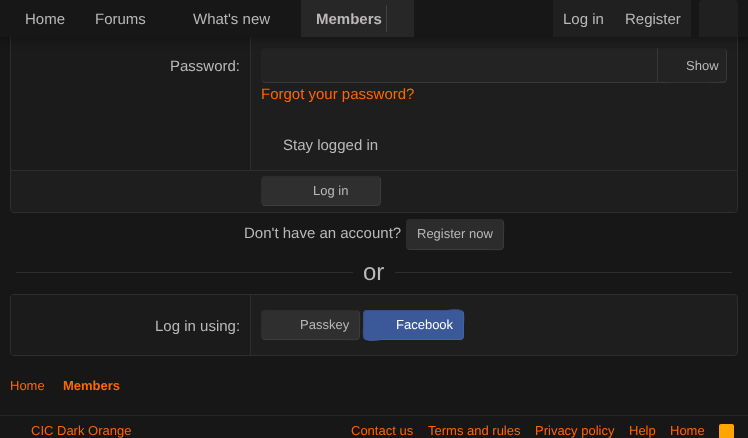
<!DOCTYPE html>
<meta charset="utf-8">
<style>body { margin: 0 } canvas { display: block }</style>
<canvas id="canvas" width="748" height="438"></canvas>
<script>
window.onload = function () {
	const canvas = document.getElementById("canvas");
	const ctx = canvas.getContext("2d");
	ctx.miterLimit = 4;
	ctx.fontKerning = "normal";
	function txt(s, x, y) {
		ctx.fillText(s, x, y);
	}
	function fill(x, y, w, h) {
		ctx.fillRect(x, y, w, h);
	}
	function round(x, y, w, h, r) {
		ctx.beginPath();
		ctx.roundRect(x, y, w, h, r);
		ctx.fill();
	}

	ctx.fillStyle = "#171717";
	fill(0, 0, 748, 438);
	ctx.fillStyle = "#1F1E1E";
	ctx.beginPath();
	ctx.roundRect(10.5, -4.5, 727, 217, 3.5);
	ctx.fill();
	ctx.strokeStyle = "#2E2E2E";
	ctx.stroke();
	ctx.fillStyle = "#1B1B1B";
	fill(11, 37, 239, 133);
	ctx.fillStyle = "#2E2E2E";
	fill(250, 33, 1, 137);
	ctx.fillStyle = "#242323";
	ctx.beginPath();
	ctx.roundRect(261, 48, 396, 35, [4, 0, 0, 4]);
	ctx.fill();
	ctx.fillStyle = "#383838";
	ctx.beginPath();
	ctx.moveTo(657, 83);
	ctx.lineTo(657, 82);
	ctx.lineTo(265, 82);
	ctx.lineTo(263, 81);
	ctx.lineTo(262, 82);
	ctx.lineTo(265, 83);
	ctx.closePath();
	ctx.fill();
	ctx.fillStyle = "#242424";
	ctx.beginPath();
	ctx.moveTo(261, 52);
	ctx.lineTo(261, 79);
	ctx.bezierCurveTo(261, 80, 261.5, 81, 262, 82);
	ctx.lineTo(263, 81);
	ctx.bezierCurveTo(262, 81, 262, 80, 262, 79);
	ctx.lineTo(262, 52);
	ctx.bezierCurveTo(262, 51, 262, 50, 263, 50);
	ctx.lineTo(262, 49);
	ctx.bezierCurveTo(261.5, 50, 261, 51, 261, 52);
	ctx.closePath();
	ctx.fill();
	ctx.fillStyle = "#242323";
	ctx.beginPath();
	ctx.roundRect(657, 48, 70, 35, [0, 4, 4, 0]);
	ctx.fill();
	ctx.fillStyle = "#383838";
	ctx.beginPath();
	ctx.moveTo(727, 79);
	ctx.lineTo(727, 52);
	ctx.bezierCurveTo(727, 51, 726.5, 50, 726, 49);
	ctx.lineTo(725, 50);
	ctx.bezierCurveTo(726, 50, 726, 51, 726, 52);
	ctx.lineTo(726, 79);
	ctx.bezierCurveTo(726, 80, 726, 81, 725, 81);
	ctx.lineTo(726, 82);
	ctx.bezierCurveTo(726.5, 81, 727, 80, 727, 79);
	ctx.closePath();
	ctx.fill();
	ctx.beginPath();
	ctx.moveTo(723, 83);
	ctx.lineTo(726, 82);
	ctx.lineTo(725, 81);
	ctx.bezierCurveTo(724, 83, 665, 82, 658, 82);
	ctx.lineTo(657, 83);
	ctx.closePath();
	ctx.fill();
	ctx.beginPath();
	ctx.moveTo(657, 48);
	ctx.lineTo(657, 83);
	ctx.lineTo(658, 82);
	ctx.lineTo(658, 49);
	ctx.closePath();
	ctx.fill();
	ctx.fillStyle = "rgba(0, 0, 0, 0.3)";
	ctx.filter = "blur(4px)";
	ctx.beginPath();
	ctx.rect(-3, -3, 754, 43);
	ctx.fill();
	ctx.filter = "none";
	ctx.fillStyle = "#171717";
	fill(0, 0, 748, 37);
	ctx.fillStyle = "#282727";
	fill(301, 0, 113, 37);
	ctx.fillStyle = "#424141";
	fill(386, 5, 1, 27);
	ctx.fillStyle = "#212020";
	fill(553, 0, 138, 37);
	ctx.beginPath();
	ctx.roundRect(699, 0, 39, 37, [4, 4, 0, 0]);
	ctx.fill();
	ctx.fillStyle = "rgba(31, 30, 30, 0.9)";
	ctx.beginPath();
	ctx.roundRect(11, 170, 726, 42, [0, 0, 3, 3]);
	ctx.fill();
	ctx.fillStyle = "#2E2E2E";
	fill(11, 170, 726, 1);
	ctx.fillStyle = "#2F2F2F";
	round(261, 176, 120, 30, 4);
	ctx.beginPath();
	ctx.moveTo(379.5, 177.5);
	ctx.bezierCurveTo(381.5, 179.5, 380.5, 188, 380.5, 191);
	ctx.lineTo(380.5, 198.5);
	ctx.bezierCurveTo(380.5, 201, 381, 205.5, 377, 205.5);
	ctx.lineTo(264.5, 205.5);
	ctx.lineTo(262.5, 204.5);
	ctx.strokeStyle = "rgba(69, 69, 69, 0.65)";
	ctx.stroke();
	ctx.beginPath();
	ctx.moveTo(262.5, 204.5);
	ctx.bezierCurveTo(260.5, 202.5, 261.5, 194, 261.5, 191);
	ctx.lineTo(261.5, 183.5);
	ctx.bezierCurveTo(261.5, 181, 261, 176.5, 265, 176.5);
	ctx.lineTo(377.5, 176.5);
	ctx.lineTo(379.5, 177.5);
	ctx.strokeStyle = "rgba(43, 43, 43, 0.65)";
	ctx.stroke();
	ctx.fillStyle = "#2C2C2C";
	round(406, 219, 98, 31, 4);
	ctx.beginPath();
	ctx.moveTo(502.5, 220.5);
	ctx.bezierCurveTo(504.5, 223, 503.5, 231.5, 503.5, 234.5);
	ctx.bezierCurveTo(503.5, 253, 505.5, 249.5, 485, 249.5);
	ctx.lineTo(410, 249.5);
	ctx.lineTo(407.5, 248.5);
	ctx.strokeStyle = "rgba(69, 69, 69, 0.65)";
	ctx.stroke();
	ctx.beginPath();
	ctx.moveTo(407.5, 248.5);
	ctx.bezierCurveTo(405.5, 246, 406.5, 237.5, 406.5, 234.5);
	ctx.bezierCurveTo(406.5, 216, 404.5, 219.5, 425, 219.5);
	ctx.lineTo(500, 219.5);
	ctx.lineTo(502.5, 220.5);
	ctx.strokeStyle = "rgba(43, 43, 43, 0.65)";
	ctx.stroke();
	ctx.fillStyle = "#2E2E2E";
	fill(16, 272, 337, 1);
	fill(395, 272, 337, 1);
	ctx.fillStyle = "#1F1E1E";
	ctx.beginPath();
	ctx.roundRect(10.5, 294.5, 727, 61, 3.5);
	ctx.fill();
	ctx.strokeStyle = "#2E2E2E";
	ctx.stroke();
	ctx.fillStyle = "#1B1B1B";
	ctx.beginPath();
	ctx.roundRect(11, 295, 240, 60, [3, 0, 0, 3]);
	ctx.fill();
	ctx.fillStyle = "#2E2E2E";
	fill(250, 295, 1, 60);
	ctx.fillStyle = "#2F2F2F";
	round(261, 310, 99, 30, 4);
	ctx.beginPath();
	ctx.moveTo(358.5, 311.5);
	ctx.bezierCurveTo(360.5, 313.5, 359.5, 322, 359.5, 325);
	ctx.bezierCurveTo(359.5, 343, 361.5, 339.5, 341, 339.5);
	ctx.lineTo(265, 339.5);
	ctx.lineTo(262.5, 338.5);
	ctx.strokeStyle = "rgba(69, 69, 69, 0.65)";
	ctx.stroke();
	ctx.beginPath();
	ctx.moveTo(262.5, 338.5);
	ctx.bezierCurveTo(260.5, 336.5, 261.5, 328, 261.5, 325);
	ctx.bezierCurveTo(261.5, 307, 259.5, 310.5, 280, 310.5);
	ctx.lineTo(356, 310.5);
	ctx.lineTo(358.5, 311.5);
	ctx.strokeStyle = "rgba(43, 43, 43, 0.65)";
	ctx.stroke();
	ctx.fillStyle = "#3B5998";
	round(363, 310, 101, 30, 4);
	ctx.beginPath();
	ctx.moveTo(462.5, 311.5);
	ctx.bezierCurveTo(464.5, 313.5, 463.5, 322, 463.5, 325);
	ctx.lineTo(463.5, 332.5);
	ctx.bezierCurveTo(463.5, 335, 464, 339.5, 460, 339.5);
	ctx.lineTo(382.5, 339.5);
	ctx.bezierCurveTo(377, 339.5, 370.5, 342, 365.5, 339);
	ctx.lineTo(364.5, 338.5);
	ctx.strokeStyle = "#4264AA";
	ctx.stroke();
	ctx.beginPath();
	ctx.moveTo(364.5, 338.5);
	ctx.bezierCurveTo(362.5, 336.5, 363.5, 328, 363.5, 325);
	ctx.lineTo(363.5, 317.5);
	ctx.bezierCurveTo(363.5, 315, 363, 310.5, 367, 310.5);
	ctx.lineTo(444.5, 310.5);
	ctx.bezierCurveTo(450, 310.5, 456.5, 308, 461.5, 311);
	ctx.lineTo(462.5, 311.5);
	ctx.strokeStyle = "#344E86";
	ctx.stroke();
	ctx.fillStyle = "#282727";
	fill(0, 415, 748, 1);
	ctx.fillStyle = "#FFA500";
	round(719, 424, 15, 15, 2);
	ctx.font = "15px Liberation Sans";
	ctx.fillStyle = "#BAB8B8";
	txt("Home", 25, 24);
	txt("Forums", 95, 24);
	txt("What's new", 193, 24);
	ctx.font = "bold 15px Liberation Sans";
	txt("Members", 316, 24);
	ctx.font = "15px Liberation Sans";
	txt("Log in", 563, 24);
	txt("Register", 625, 24);
	txt("Password:", 170, 71);
	ctx.font = "13px Liberation Sans";
	txt("Show", 686, 70);
	ctx.font = "15px Liberation Sans";
	ctx.fillStyle = "#FF6600";
	txt("Forgot your password?", 261, 99);
	ctx.fillStyle = "#BAB8B8";
	txt("Stay logged in", 283, 150);
	ctx.font = "13px Liberation Sans";
	txt("Log in", 313, 195);
	ctx.font = "15px Liberation Sans";
	txt("Don't have an account?", 244, 238);
	ctx.font = "13px Liberation Sans";
	txt("Register now", 417, 238);
	ctx.font = "24px Liberation Sans";
	txt("or", 363, 280);
	ctx.font = "15px Liberation Sans";
	txt("Log in using:", 155, 331);
	ctx.font = "13px Liberation Sans";
	txt("Passkey", 300, 329);
	ctx.fillStyle = "#FFFFFF";
	txt("Facebook", 396, 329);
	ctx.fillStyle = "#FF6600";
	txt("Home", 10, 390);
	ctx.font = "bold 13px Liberation Sans";
	txt("Members", 63, 390);
	ctx.font = "13px Liberation Sans";
	txt("CIC Dark Orange", 31, 435);
	txt("Contact us", 351, 435);
	txt("Terms and rules", 428, 435);
	txt("Privacy policy", 535, 435);
	txt("Help", 629, 435);
	txt("Home", 670, 435);
};
</script>
